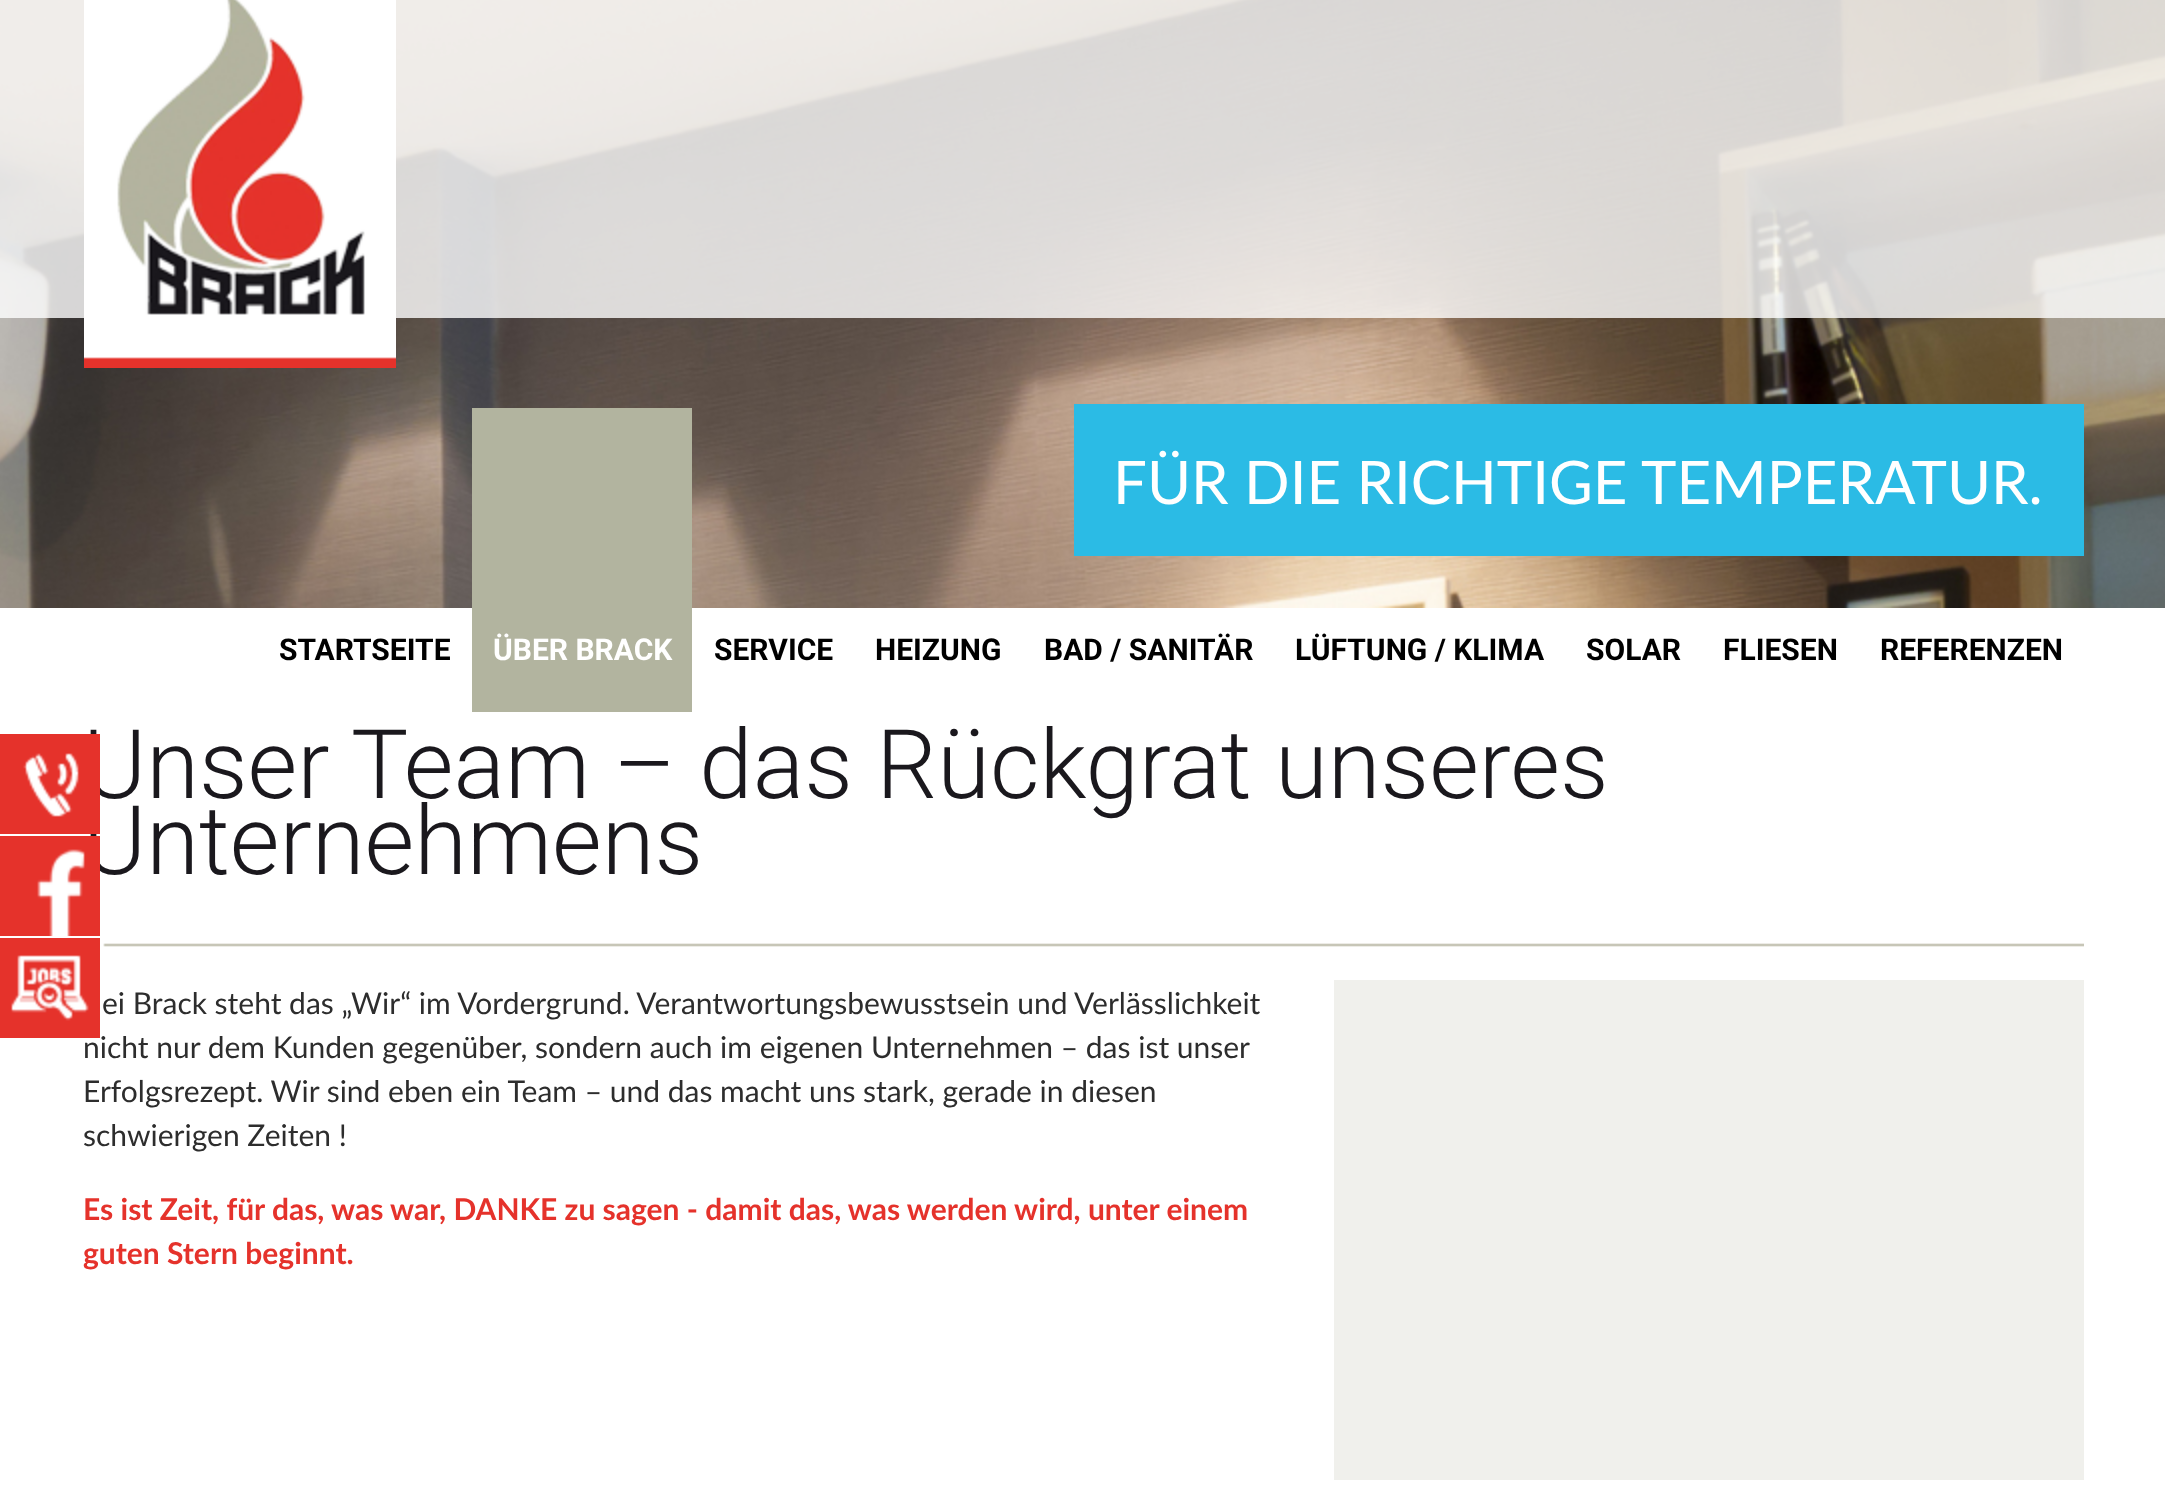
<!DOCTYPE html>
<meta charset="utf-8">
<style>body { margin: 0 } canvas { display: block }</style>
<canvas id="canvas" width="2165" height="1498"></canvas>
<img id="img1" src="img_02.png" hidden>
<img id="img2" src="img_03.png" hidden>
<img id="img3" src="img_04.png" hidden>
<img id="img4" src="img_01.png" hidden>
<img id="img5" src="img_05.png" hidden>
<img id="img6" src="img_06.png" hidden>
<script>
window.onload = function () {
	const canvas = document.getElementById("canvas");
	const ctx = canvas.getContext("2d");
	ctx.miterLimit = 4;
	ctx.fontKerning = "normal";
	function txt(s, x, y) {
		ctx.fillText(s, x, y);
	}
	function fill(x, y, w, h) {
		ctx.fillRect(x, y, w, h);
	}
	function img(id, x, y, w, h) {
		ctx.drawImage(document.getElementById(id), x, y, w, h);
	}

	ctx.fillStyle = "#FFFFFF";
	fill(0, 0, 2165, 1498);
	img("img1", 0, 0, 2165, 608);
	ctx.fillStyle = "#2BBBE5";
	fill(1074, 404, 1010, 152);
	ctx.fillStyle = "rgba(255, 255, 255, 0.8)";
	fill(0, 0, 2165, 318);
	img("img2", 84, 0, 312, 368);
	ctx.fillStyle = "#B2B49F";
	fill(472, 408, 220, 304);
	img("img3", 103, 943, 1981, 4);
	ctx.fillStyle = "#F0F0EC";
	fill(1334, 980, 750, 500);
	ctx.font = "60px Lato";
	ctx.fillStyle = "#FFFFFF";
	txt("FÜR DIE RICHTIGE TEMPERATUR.", 1113, 504);
	ctx.font = "bold 30px Roboto";
	ctx.fillStyle = "#000000";
	txt("STARTSEITE", 279, 660);
	ctx.fillStyle = "#FFFFFF";
	txt("ÜBER BRACK", 493, 660);
	ctx.fillStyle = "#000000";
	txt("SERVICE", 714, 660);
	txt("HEIZUNG", 875, 660);
	txt("BAD / SANITÄR", 1044, 660);
	txt("LÜFTUNG / KLIMA", 1295, 660);
	txt("SOLAR", 1586, 660);
	txt("FLIESEN", 1723, 660);
	txt("REFERENZEN", 1880, 660);
	ctx.font = "300 96px Roboto";
	ctx.fillStyle = "#1A181D";
	txt("Unser Team – das Rückgrat unseres", 83, 798);
	txt("Unternehmens", 83, 874);
	img("img4", 0, 734, 100, 100);
	ctx.font = "30px Lato";
	ctx.fillStyle = "#2D2D2D";
	txt("ei Brack steht das „Wir“ im Vordergrund. Verantwortungsbewusstsein und Verlässlichkeit", 102, 1014);
	txt("nicht nur dem Kunden gegenüber, sondern auch im eigenen Unternehmen – das ist unser", 83, 1058);
	txt("Erfolgsrezept. Wir sind eben ein Team – und das macht uns stark, gerade in diesen", 83, 1102);
	txt("schwierigen Zeiten !", 83, 1146);
	ctx.font = "bold 30px Lato";
	ctx.fillStyle = "#E5322B";
	txt("Es ist Zeit, für das, was war, DANKE zu sagen - damit das, was werden wird, unter einem", 83, 1220);
	txt("guten Stern beginnt.", 83, 1264);
	img("img5", 0, 836, 100, 100);
	img("img6", 0, 938, 100, 100);
};
</script>
